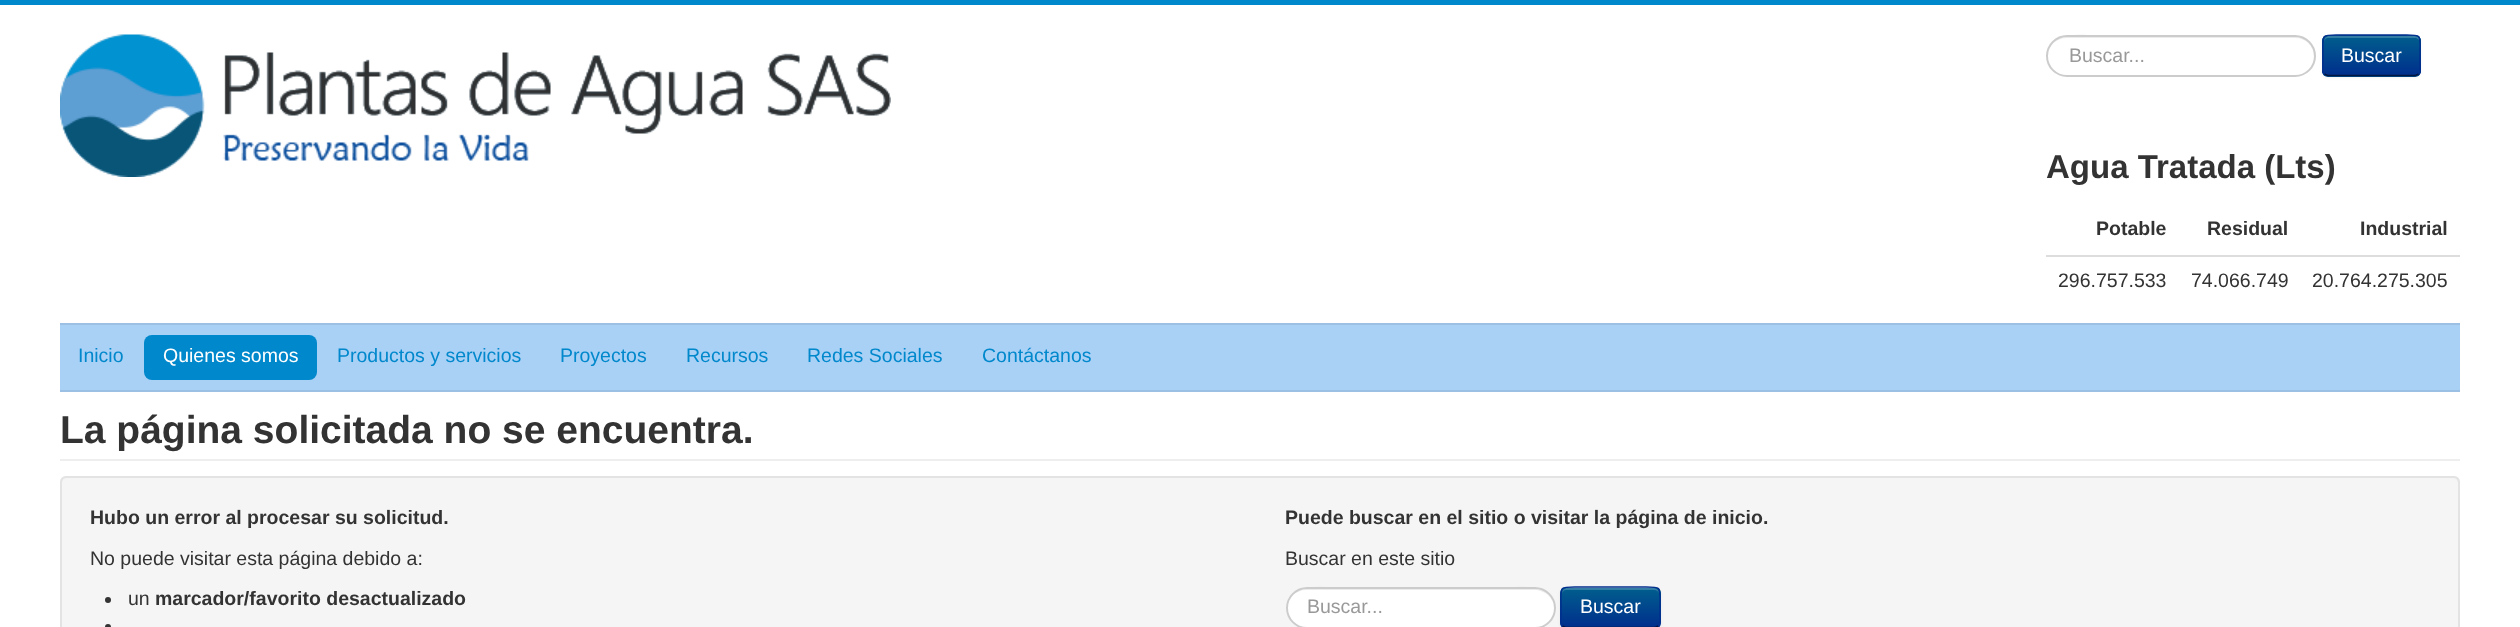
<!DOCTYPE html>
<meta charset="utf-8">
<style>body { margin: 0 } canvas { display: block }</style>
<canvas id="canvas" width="2520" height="627"></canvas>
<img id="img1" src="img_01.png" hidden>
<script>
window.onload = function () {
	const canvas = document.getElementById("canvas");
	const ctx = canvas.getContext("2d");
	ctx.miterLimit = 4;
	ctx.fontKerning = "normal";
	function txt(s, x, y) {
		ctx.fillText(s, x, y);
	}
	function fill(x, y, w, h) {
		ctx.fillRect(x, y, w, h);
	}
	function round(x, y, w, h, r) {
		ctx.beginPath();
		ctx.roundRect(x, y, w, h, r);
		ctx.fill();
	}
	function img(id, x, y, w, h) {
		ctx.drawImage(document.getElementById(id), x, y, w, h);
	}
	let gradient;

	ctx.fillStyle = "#FFFFFF";
	fill(0, 0, 2520, 627);
	ctx.fillStyle = "#0088CC";
	fill(0, 0, 2520, 5);
	img("img1", 60, 34, 831, 143);
	ctx.fillStyle = "#ECECEC";
	ctx.beginPath();
	ctx.moveTo(2067, 38);
	ctx.lineTo(2295, 38);
	ctx.bezierCurveTo(2306, 38, 2314, 46, 2314, 57);
	ctx.bezierCurveTo(2314, 60, 2313, 63, 2312, 66);
	ctx.bezierCurveTo(2315, 62, 2316, 56, 2315, 52);
	ctx.bezierCurveTo(2313, 43, 2305, 36, 2296, 36);
	ctx.lineTo(2106, 36);
	ctx.bezierCurveTo(2092, 36, 2047, 27, 2048, 56);
	ctx.bezierCurveTo(2048, 46, 2056, 38, 2067, 38);
	ctx.closePath();
	ctx.fill();
	ctx.beginPath();
	ctx.roundRect(2047, 36, 268, 40, 20);
	ctx.strokeStyle = "#CCCCCC";
	ctx.lineWidth = 2;
	ctx.stroke();
	ctx.fillStyle = "rgba(0, 0, 0, 0.05)";
	ctx.filter = "blur(1.5px)";
	ctx.beginPath();
	ctx.roundRect(2322, 36, 99, 42, 6);
	ctx.fill();
	ctx.filter = "none";
	ctx.fillStyle = "#004B8D";
	round(2322, 35, 99, 42, 6);
	ctx.save();
	ctx.beginPath();
	ctx.roundRect(2322, 35, 99, 42, 6);
	ctx.clip();
	gradient = ctx.createLinearGradient(2372, 36, 2372, 75);
	gradient.addColorStop(0, "#005E8D");
	gradient.addColorStop(1, "#002F8D");
	ctx.fillStyle = gradient;
	fill(2322, 36, 99, 39);
	ctx.restore();
	ctx.fillStyle = "rgba(255, 255, 255, 0.2)";
	ctx.beginPath();
	ctx.moveTo(2328, 38);
	ctx.lineTo(2415, 38);
	ctx.bezierCurveTo(2417, 38, 2420, 40, 2420, 42);
	ctx.bezierCurveTo(2420, 32, 2406, 36, 2401, 36);
	ctx.lineTo(2343, 36);
	ctx.bezierCurveTo(2338, 36, 2324, 32, 2324, 42);
	ctx.bezierCurveTo(2324, 40, 2326, 38, 2328, 38);
	ctx.closePath();
	ctx.fill();
	ctx.beginPath();
	ctx.moveTo(2418.5, 74);
	ctx.lineTo(2415.5, 75.5);
	ctx.lineTo(2327.5, 75.5);
	ctx.lineTo(2324.5, 74);
	ctx.strokeStyle = "#001641";
	ctx.lineWidth = 1.5;
	ctx.stroke();
	ctx.beginPath();
	ctx.moveTo(2324.5, 74);
	ctx.bezierCurveTo(2322, 72, 2323, 68.5, 2323, 65.5);
	ctx.lineTo(2323, 55.5);
	ctx.bezierCurveTo(2323, 33, 2319.5, 35, 2342.5, 35);
	ctx.lineTo(2400.5, 35);
	ctx.bezierCurveTo(2423.5, 35, 2420, 33, 2420, 55.5);
	ctx.lineTo(2420, 65.5);
	ctx.bezierCurveTo(2420, 68.5, 2421, 72, 2418.5, 74);
	ctx.strokeStyle = "#002F8D";
	ctx.stroke();
	ctx.fillStyle = "#DDDDDD";
	fill(2046, 255, 414, 2);
	ctx.fillStyle = "#A9D0F5";
	fill(60, 325, 2400, 65);
	ctx.fillStyle = "#9CC0E3";
	fill(60, 323, 2400, 2);
	fill(60, 390, 2400, 2);
	ctx.fillStyle = "#0088CC";
	round(144, 335, 173, 45, 8);
	ctx.fillStyle = "#EEEEEE";
	fill(60, 459, 2400, 2);
	ctx.fillStyle = "#F5F5F5";
	round(60, 476, 2400, 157, 6);
	ctx.fillStyle = "#E9E9E9";
	ctx.beginPath();
	ctx.moveTo(66, 478);
	ctx.lineTo(2454, 478);
	ctx.bezierCurveTo(2456, 478, 2458, 481, 2458, 483);
	ctx.lineTo(2458, 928);
	ctx.lineTo(2457, 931);
	ctx.bezierCurveTo(2458, 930, 2459, 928, 2459, 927);
	ctx.lineTo(2459, 482);
	ctx.bezierCurveTo(2459, 479, 2457, 477, 2454, 477);
	ctx.lineTo(67, 477);
	ctx.bezierCurveTo(64, 477, 62, 479, 62, 482);
	ctx.lineTo(62, 483);
	ctx.bezierCurveTo(62, 481, 64, 478, 66, 478);
	ctx.closePath();
	ctx.fill();
	ctx.beginPath();
	ctx.roundRect(61, 477, 2398, 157, 5);
	ctx.strokeStyle = "#E3E3E3";
	ctx.lineWidth = 2;
	ctx.stroke();
	ctx.fillStyle = "#333333";
	ctx.beginPath();
	ctx.arc(108, 600, 3, 0, Math.PI * 2);
	ctx.fill();
	ctx.beginPath();
	ctx.arc(108, 627, 3, 0, Math.PI * 2);
	ctx.fill();
	ctx.fillStyle = "#FFFFFF";
	round(1286, 587, 270, 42, 21);
	ctx.fillStyle = "#ECECEC";
	ctx.beginPath();
	ctx.moveTo(1306, 590);
	ctx.lineTo(1534, 590);
	ctx.bezierCurveTo(1545, 590, 1554, 598, 1554, 608);
	ctx.bezierCurveTo(1555, 579, 1510, 588, 1496, 588);
	ctx.lineTo(1344, 588);
	ctx.bezierCurveTo(1331, 588, 1286, 579, 1287, 608);
	ctx.bezierCurveTo(1287, 598, 1296, 590, 1306, 590);
	ctx.closePath();
	ctx.fill();
	ctx.beginPath();
	ctx.roundRect(1287, 588, 268, 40, 20);
	ctx.strokeStyle = "#CCCCCC";
	ctx.stroke();
	ctx.fillStyle = "rgba(0, 0, 0, 0.05)";
	ctx.filter = "blur(1.5px)";
	ctx.beginPath();
	ctx.roundRect(1560, 588, 101, 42, 6);
	ctx.fill();
	ctx.filter = "none";
	ctx.save();
	ctx.beginPath();
	ctx.roundRect(1560, 587, 101, 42, 6);
	ctx.clip();
	gradient = ctx.createLinearGradient(1610, 588, 1610, 627);
	gradient.addColorStop(0, "#005E8D");
	gradient.addColorStop(1, "#002F8D");
	ctx.fillStyle = gradient;
	fill(1560, 588, 101, 39);
	ctx.restore();
	ctx.fillStyle = "rgba(255, 255, 255, 0.2)";
	ctx.beginPath();
	ctx.moveTo(1566, 590);
	ctx.lineTo(1654, 590);
	ctx.bezierCurveTo(1657, 590, 1659, 592, 1659, 594);
	ctx.bezierCurveTo(1659, 584, 1645, 588, 1640, 588);
	ctx.lineTo(1582, 588);
	ctx.bezierCurveTo(1576, 588, 1562, 584, 1562, 594);
	ctx.bezierCurveTo(1562, 592, 1564, 590, 1566, 590);
	ctx.closePath();
	ctx.fill();
	ctx.beginPath();
	ctx.moveTo(1658, 626);
	ctx.lineTo(1655, 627.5);
	ctx.lineTo(1565.5, 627.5);
	ctx.lineTo(1562.5, 626);
	ctx.strokeStyle = "#001641";
	ctx.lineWidth = 1.5;
	ctx.stroke();
	ctx.beginPath();
	ctx.moveTo(1562.5, 626);
	ctx.bezierCurveTo(1560, 624, 1561, 620.5, 1561, 617.5);
	ctx.lineTo(1561, 607.5);
	ctx.bezierCurveTo(1561, 585, 1557.5, 587, 1581, 587);
	ctx.lineTo(1640, 587);
	ctx.bezierCurveTo(1663, 587, 1660, 585, 1660, 607.5);
	ctx.lineTo(1660, 617.5);
	ctx.bezierCurveTo(1660, 620.5, 1660.5, 624, 1658, 626);
	ctx.strokeStyle = "#002F8D";
	ctx.stroke();
	ctx.font = "19.5px Liberation Sans";
	ctx.fillStyle = "#999999";
	txt("Buscar...", 2069, 62);
	ctx.fillStyle = "#FFFFFF";
	txt("Buscar", 2341, 62);
	ctx.font = "bold 33px Liberation Sans";
	ctx.fillStyle = "#333333";
	txt("Agua Tratada (Lts)", 2046, 178);
	ctx.font = "bold 19.5px Liberation Sans";
	txt("Potable", 2096, 235);
	txt("Residual", 2207, 235);
	txt("Industrial", 2360, 235);
	ctx.font = "19.5px Liberation Sans";
	txt("296.757.533", 2058, 287);
	txt("74.066.749", 2191, 287);
	txt("20.764.275.305", 2312, 287);
	ctx.fillStyle = "#0088CC";
	txt("Inicio", 78, 362);
	ctx.fillStyle = "#FFFFFF";
	txt("Quienes somos", 163, 362);
	ctx.fillStyle = "#0088CC";
	txt("Productos y servicios", 337, 362);
	txt("Proyectos", 560, 362);
	txt("Recursos", 686, 362);
	txt("Redes Sociales", 807, 362);
	txt("Contáctanos", 982, 362);
	ctx.font = "bold 39px Liberation Sans";
	ctx.fillStyle = "#333333";
	txt("La página solicitada no se encuentra.", 60, 443);
	ctx.font = "bold 19.5px Liberation Sans";
	txt("Hubo un error al procesar su solicitud.", 90, 524);
	ctx.font = "19.5px Liberation Sans";
	txt("No puede visitar esta página debido a:", 90, 565);
	txt("un", 128, 605);
	ctx.font = "bold 19.5px Liberation Sans";
	txt("marcador/favorito desactualizado", 155, 605);
	txt("Puede buscar en el sitio o visitar la página de inicio.", 1285, 524);
	ctx.font = "19.5px Liberation Sans";
	txt("Buscar en este sitio", 1285, 565);
	ctx.fillStyle = "#999999";
	txt("Buscar...", 1307, 613);
	ctx.fillStyle = "#FFFFFF";
	txt("Buscar", 1580, 613);
};
</script>
